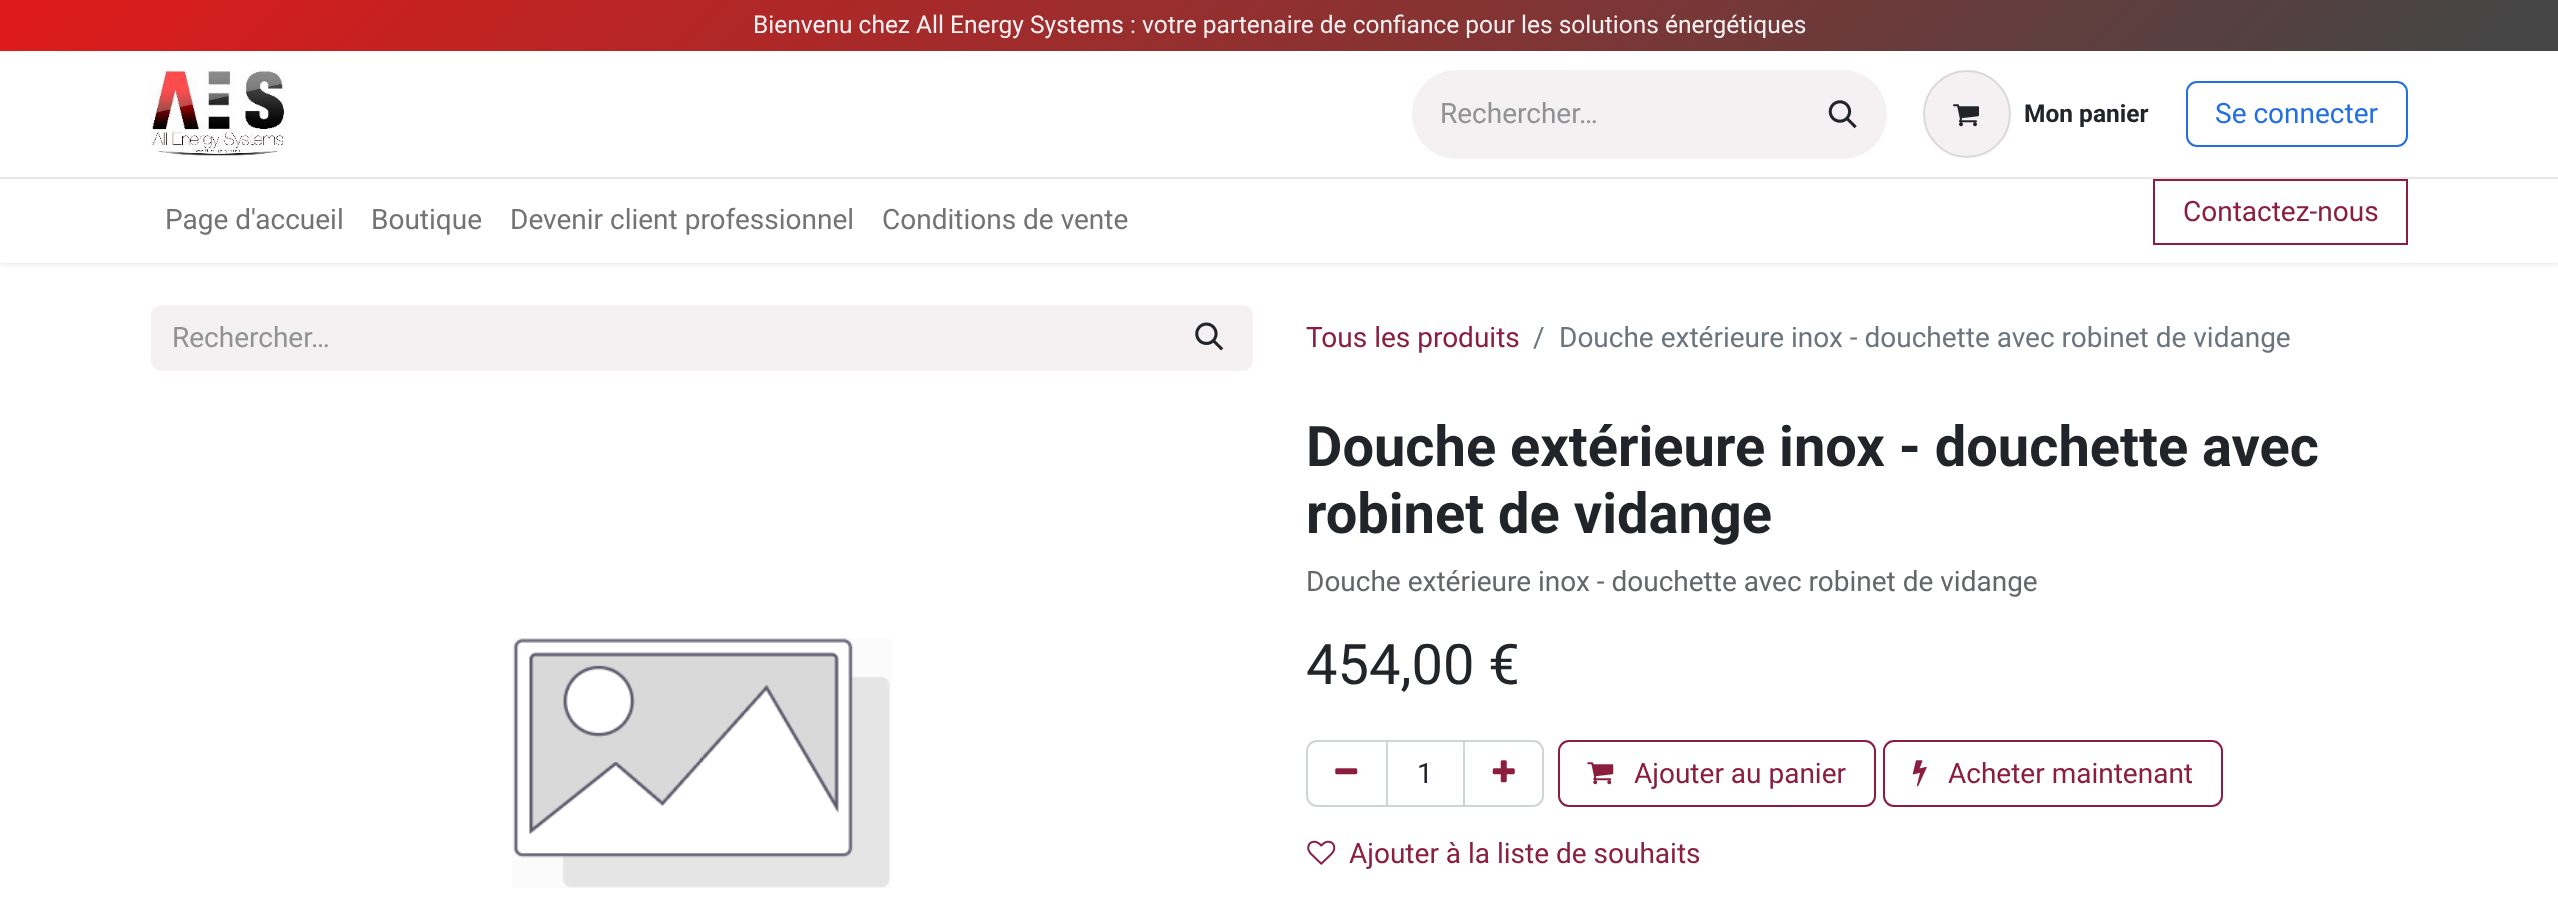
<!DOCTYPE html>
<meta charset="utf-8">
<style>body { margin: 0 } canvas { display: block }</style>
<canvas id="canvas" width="2558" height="897"></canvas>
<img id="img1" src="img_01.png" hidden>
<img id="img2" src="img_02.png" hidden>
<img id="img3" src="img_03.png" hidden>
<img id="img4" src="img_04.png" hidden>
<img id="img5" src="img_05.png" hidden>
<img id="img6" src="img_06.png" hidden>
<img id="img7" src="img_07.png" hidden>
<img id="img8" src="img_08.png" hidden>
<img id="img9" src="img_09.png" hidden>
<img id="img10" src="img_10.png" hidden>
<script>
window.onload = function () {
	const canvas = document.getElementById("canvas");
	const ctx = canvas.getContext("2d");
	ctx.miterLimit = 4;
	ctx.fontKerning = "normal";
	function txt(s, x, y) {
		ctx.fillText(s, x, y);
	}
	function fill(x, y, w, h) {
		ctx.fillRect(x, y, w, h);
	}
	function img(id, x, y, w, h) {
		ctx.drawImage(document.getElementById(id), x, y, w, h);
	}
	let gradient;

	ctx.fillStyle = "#FFFFFF";
	fill(0, 0, 2558, 897);
	ctx.fillStyle = "rgba(0, 0, 0, 0.1)";
	ctx.filter = "blur(2.5px)";
	ctx.beginPath();
	ctx.rect(0, 2, 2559, 262);
	ctx.fill();
	ctx.filter = "none";
	ctx.fillStyle = "#FFFFFF";
	fill(0, 51, 2558, 212);
	gradient = ctx.createLinearGradient(627, -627, 1932, 678);
	gradient.addColorStop(0, "#E01A1A");
	gradient.addColorStop(0.97, "#454545");
	ctx.fillStyle = gradient;
	fill(0, 0, 2558, 51);
	img("img1", 150, 70, 135, 87);
	ctx.fillStyle = "#F5F0F2";
	ctx.beginPath();
	ctx.roundRect(1412, 70, 389, 89, [44.5, 0, 0, 44.5]);
	ctx.fill();
	ctx.beginPath();
	ctx.roundRect(1799, 70, 88, 89, [0, 44.5, 44.5, 0]);
	ctx.fill();
	img("img2", 1828, 100, 29, 29);
	ctx.beginPath();
	ctx.arc(1967, 114, 44, 0, Math.PI * 2);
	ctx.fill();
	ctx.beginPath();
	ctx.arc(1967, 114, 43, 0, Math.PI * 2);
	ctx.strokeStyle = "rgba(0, 0, 0, 0.1)";
	ctx.lineWidth = 2;
	ctx.stroke();
	img("img3", 1953, 104, 26, 23);
	ctx.beginPath();
	ctx.roundRect(2187, 82, 220, 64, 10);
	ctx.strokeStyle = "#226FE2";
	ctx.stroke();
	ctx.fillStyle = "#E6E6E6";
	fill(0, 177, 2558, 2);
	ctx.strokeStyle = "#8B1E3F";
	ctx.strokeRect(2154, 180, 253, 64);
	ctx.fillStyle = "#F5F0F2";
	ctx.beginPath();
	ctx.roundRect(151, 305, 1016, 66, [11, 0, 0, 11]);
	ctx.fill();
	ctx.beginPath();
	ctx.roundRect(1167, 306, 85, 64, [0, 10, 10, 0]);
	ctx.fill();
	ctx.strokeStyle = "#F5F0F2";
	ctx.stroke();
	img("img4", 1195, 322, 29, 29);
	img("img5", 512, 638, 379, 250);
	ctx.strokeStyle = "#CED4DA";
	ctx.strokeRect(1387, 741, 77, 65);
	ctx.beginPath();
	ctx.roundRect(1307, 741, 80, 65, [10, 0, 0, 10]);
	ctx.stroke();
	img("img6", 1335, 768, 23, 7);
	ctx.beginPath();
	ctx.roundRect(1464, 741, 79, 65, [0, 10, 10, 0]);
	ctx.stroke();
	img("img7", 1492, 760, 23, 23);
	ctx.beginPath();
	ctx.roundRect(1559, 741, 316, 65, 10);
	ctx.strokeStyle = "#8B1E3F";
	ctx.stroke();
	img("img8", 1587, 762, 27, 23);
	ctx.beginPath();
	ctx.roundRect(1884, 741, 338, 65, 10);
	ctx.stroke();
	img("img9", 1912, 760, 15, 27);
	img("img10", 1307, 840, 29, 25);
	ctx.font = "24.5px Roboto";
	txt("Bienvenu chez All Energy Systems : votre partenaire de confiance pour les solutions énergétiques", 753, 33);
	ctx.font = "28px Roboto";
	ctx.fillStyle = "#909294";
	txt("Rechercher…", 1440, 123);
	ctx.font = "bold 24.5px Roboto";
	ctx.fillStyle = "#212529";
	txt("Mon panier", 2024, 122);
	ctx.font = "28px Roboto";
	ctx.fillStyle = "#226FE2";
	txt("Se connecter", 2215, 123);
	ctx.fillStyle = "#737373";
	txt("Page d'accueil", 165, 229);
	txt("Boutique", 371, 229);
	txt("Devenir client professionnel", 510, 229);
	txt("Conditions de vente", 882, 229);
	ctx.fillStyle = "#8B1E3F";
	txt("Contactez-nous", 2183, 221);
	ctx.fillStyle = "#909294";
	txt("Rechercher…", 172, 347);
	ctx.fillStyle = "#8B1E3F";
	txt("Tous les produits", 1306, 347);
	ctx.fillStyle = "#6C757D";
	txt("/", 1533, 347);
	txt("Douche extérieure inox - douchette avec robinet de vidange", 1559, 347);
	ctx.font = "bold 56px Roboto";
	ctx.fillStyle = "#212529";
	txt("Douche extérieure inox - douchette avec", 1306, 466);
	txt("robinet de vidange", 1306, 533);
	ctx.font = "28px Roboto";
	ctx.fillStyle = "#646669";
	txt("Douche extérieure inox - douchette avec robinet de vidange", 1306, 591);
	ctx.font = "56px Roboto";
	ctx.fillStyle = "#212529";
	txt("454,00 €", 1306, 684);
	ctx.font = "28px Roboto";
	txt("1", 1417, 783);
	ctx.fillStyle = "#8B1E3F";
	txt("Ajouter au panier", 1634, 783);
	txt("Acheter maintenant", 1948, 783);
	txt("Ajouter à la liste de souhaits", 1349, 863);
};
</script>
